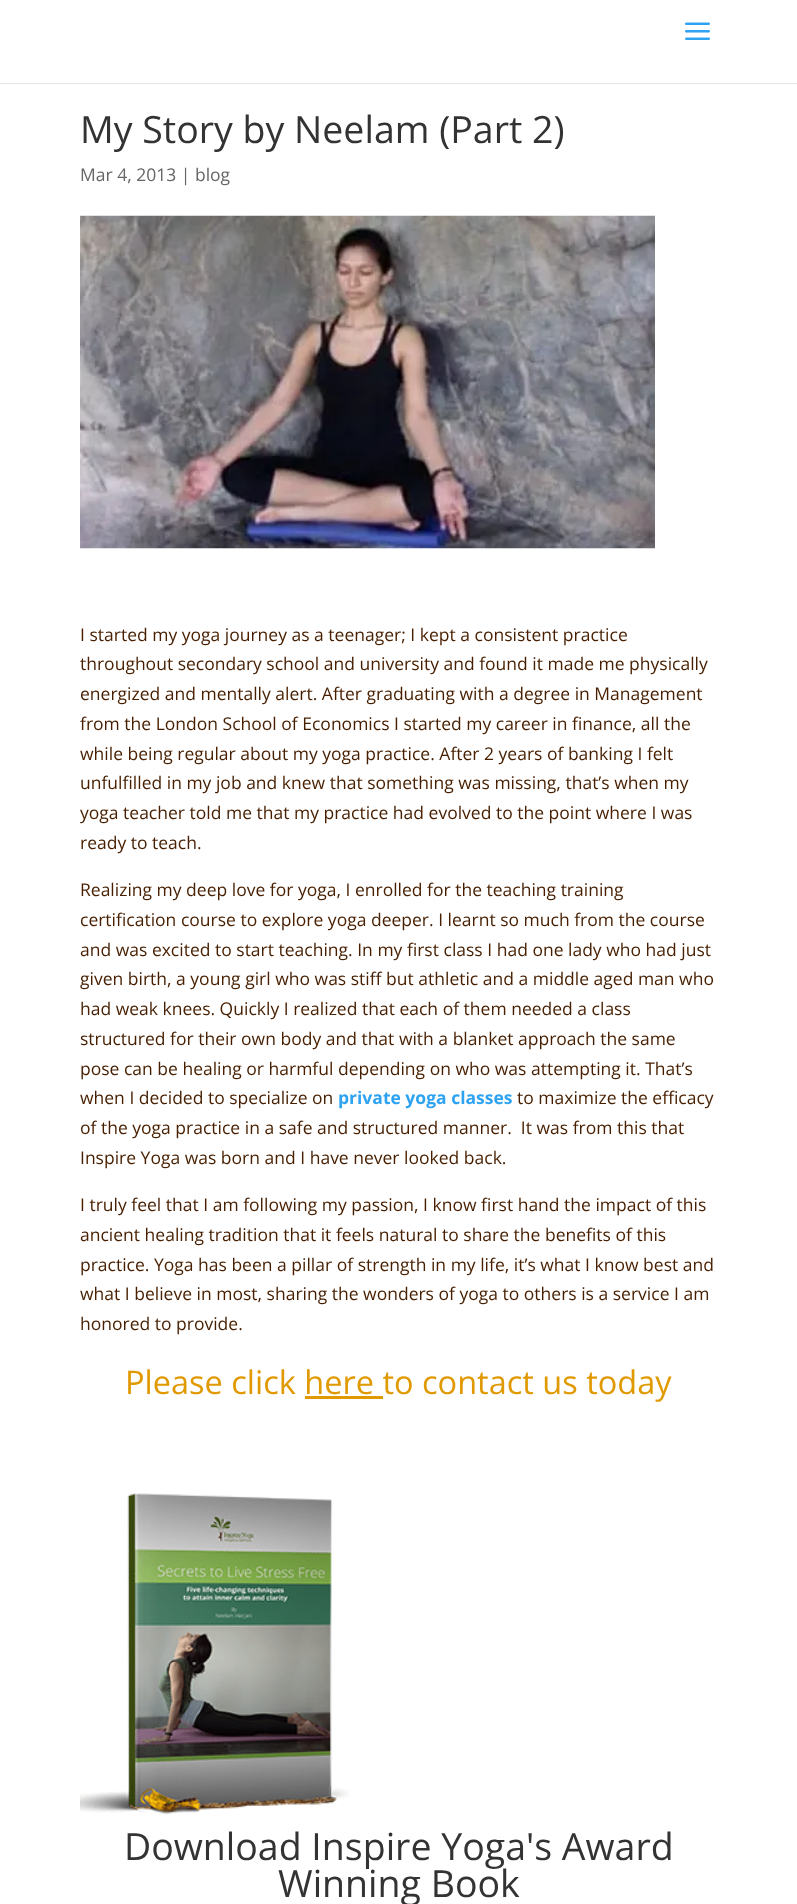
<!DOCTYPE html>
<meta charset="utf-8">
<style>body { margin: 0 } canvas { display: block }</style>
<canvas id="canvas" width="797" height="1904"></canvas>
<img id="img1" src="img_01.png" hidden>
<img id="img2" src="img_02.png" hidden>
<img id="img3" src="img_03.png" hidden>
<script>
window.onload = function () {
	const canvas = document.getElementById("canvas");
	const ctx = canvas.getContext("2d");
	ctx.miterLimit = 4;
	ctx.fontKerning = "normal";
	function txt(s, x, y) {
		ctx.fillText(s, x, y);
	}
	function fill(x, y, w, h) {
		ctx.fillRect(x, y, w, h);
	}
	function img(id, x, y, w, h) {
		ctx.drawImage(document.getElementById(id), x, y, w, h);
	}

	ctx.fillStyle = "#FFFFFF";
	fill(0, 0, 797, 1904);
	ctx.fillStyle = "#E6E6E6";
	ctx.beginPath();
	ctx.moveTo(0, 82);
	ctx.lineTo(0, 84);
	ctx.lineTo(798, 84);
	ctx.lineTo(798, -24);
	ctx.lineTo(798, 82);
	ctx.closePath();
	ctx.fill();
	ctx.fillStyle = "#FFFFFF";
	fill(0, 82, 797, 1);
	img("img1", 685, 22, 25, 18);
	img("img2", 80, 215, 575, 334);
	ctx.fillStyle = "#E09900";
	fill(305, 1396, 78, 3);
	img("img3", 80, 1493, 269, 322);
	ctx.font = "37.5px Open Sans";
	ctx.fillStyle = "#333333";
	txt("My Story by Neelam (Part 2)", 80, 143);
	ctx.font = "17.5px Open Sans";
	ctx.fillStyle = "#666666";
	txt("Mar 4, 2013 | blog", 80, 181);
	ctx.fillStyle = "#471F00";
	txt("I started my yoga journey as a teenager; I kept a consistent practice", 80, 641);
	txt("throughout secondary school and university and found it made me physically", 80, 670);
	txt("energized and mentally alert. After graduating with a degree in Management", 80, 700);
	txt("from the London School of Economics I started my career in finance, all the", 80, 730);
	txt("while being regular about my yoga practice. After 2 years of banking I felt", 80, 760);
	txt("unfulfilled in my job and knew that something was missing, that’s when my", 80, 789);
	txt("yoga teacher told me that my practice had evolved to the point where I was", 80, 819);
	txt("ready to teach.", 80, 849);
	txt("Realizing my deep love for yoga, I enrolled for the teaching training", 80, 896);
	txt("certification course to explore yoga deeper. I learnt so much from the course", 80, 926);
	txt("and was excited to start teaching. In my first class I had one lady who had just", 80, 956);
	txt("given birth, a young girl who was stiff but athletic and a middle aged man who", 80, 985);
	txt("had weak knees. Quickly I realized that each of them needed a class", 80, 1015);
	txt("structured for their own body and that with a blanket approach the same", 80, 1045);
	txt("pose can be healing or harmful depending on who was attempting it. That’s", 80, 1075);
	txt("when I decided to specialize on", 80, 1104);
	ctx.font = "bold 17.5px Open Sans";
	ctx.fillStyle = "#2EA3F2";
	txt("private yoga classes", 338, 1104);
	ctx.font = "17.5px Open Sans";
	ctx.fillStyle = "#471F00";
	txt("to maximize the efficacy", 517, 1104);
	txt("of the yoga practice in a safe and structured manner.  It was from this that", 80, 1134);
	txt("Inspire Yoga was born and I have never looked back.", 80, 1164);
	txt("I truly feel that I am following my passion, I know first hand the impact of this", 80, 1211);
	txt("ancient healing tradition that it feels natural to share the benefits of this", 80, 1241);
	txt("practice. Yoga has been a pillar of strength in my life, it’s what I know best and", 80, 1271);
	txt("what I believe in most, sharing the wonders of yoga to others is a service I am", 80, 1300);
	txt("honored to provide.", 80, 1330);
	ctx.font = "32.5px Open Sans";
	ctx.fillStyle = "#E09900";
	txt("Please click here to contact us today", 125, 1394);
	ctx.font = "37.5px Open Sans";
	ctx.fillStyle = "#333333";
	txt("Download Inspire Yoga's Award", 124, 1860);
	txt("Winning Book", 278, 1897);
};
</script>
